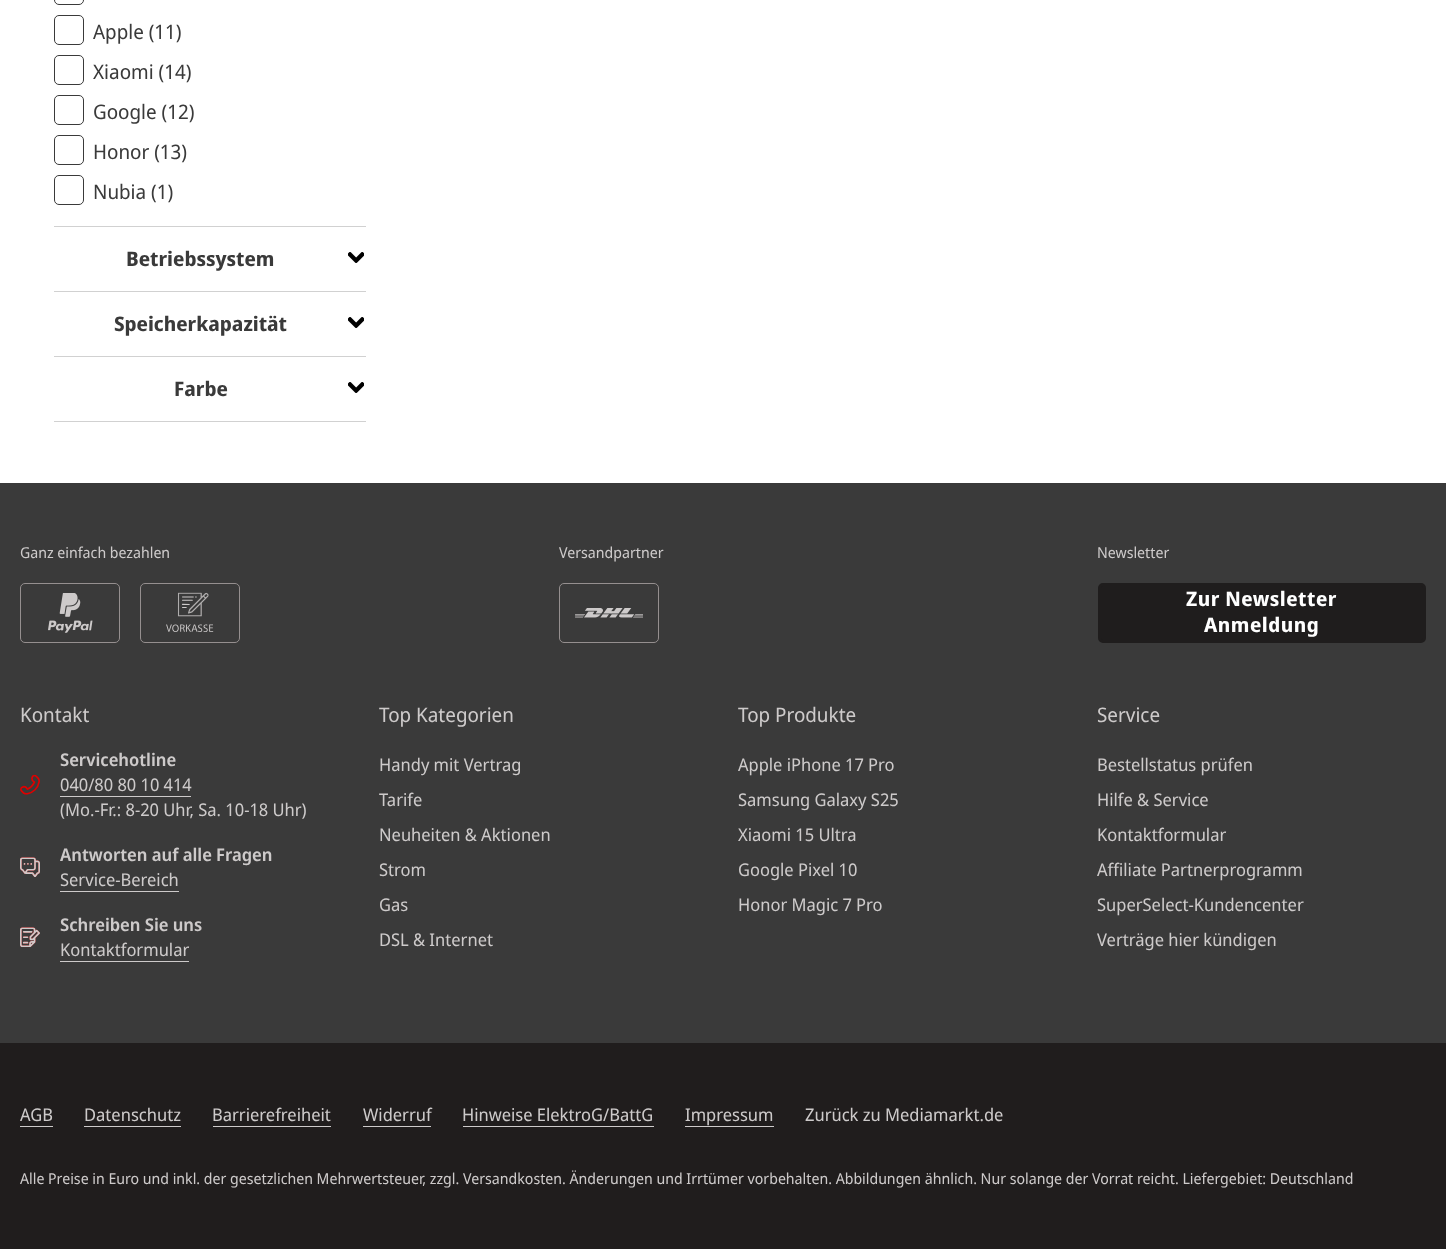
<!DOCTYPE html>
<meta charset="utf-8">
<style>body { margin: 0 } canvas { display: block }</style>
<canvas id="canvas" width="1446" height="1249"></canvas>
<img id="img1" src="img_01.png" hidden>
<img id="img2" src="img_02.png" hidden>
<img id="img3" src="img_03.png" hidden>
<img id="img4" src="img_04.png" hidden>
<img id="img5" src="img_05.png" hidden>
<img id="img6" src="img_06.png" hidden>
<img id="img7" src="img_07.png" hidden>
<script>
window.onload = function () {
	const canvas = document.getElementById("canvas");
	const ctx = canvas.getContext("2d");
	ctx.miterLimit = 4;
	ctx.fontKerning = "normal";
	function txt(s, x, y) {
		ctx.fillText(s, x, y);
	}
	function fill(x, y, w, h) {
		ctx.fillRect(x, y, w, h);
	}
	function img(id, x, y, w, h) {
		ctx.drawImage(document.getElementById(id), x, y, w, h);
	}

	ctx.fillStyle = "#FFFFFF";
	fill(0, 0, 1446, 1249);
	ctx.beginPath();
	ctx.roundRect(54.5, -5.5, 29, 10, 4.5);
	ctx.strokeStyle = "#3A3A3A";
	ctx.stroke();
	ctx.beginPath();
	ctx.roundRect(54.5, 15.5, 29, 29, 4.5);
	ctx.stroke();
	ctx.beginPath();
	ctx.roundRect(54.5, 55.5, 29, 29, 4.5);
	ctx.stroke();
	ctx.beginPath();
	ctx.roundRect(54.5, 95.5, 29, 29, 4.5);
	ctx.stroke();
	ctx.beginPath();
	ctx.roundRect(54.5, 135.5, 29, 29, 4.5);
	ctx.stroke();
	ctx.beginPath();
	ctx.roundRect(54.5, 175.5, 29, 29, 4.5);
	ctx.stroke();
	ctx.fillStyle = "#D1D1D1";
	fill(54, 226, 312, 1);
	img("img1", 348, 252, 16, 11);
	fill(54, 291, 312, 1);
	img("img1", 348, 317, 16, 11);
	fill(54, 356, 312, 1);
	fill(54, 421, 312, 1);
	img("img1", 348, 382, 16, 11);
	ctx.fillStyle = "#3A3A3A";
	fill(0, 483, 1446, 560);
	ctx.beginPath();
	ctx.roundRect(20.5, 583.5, 99, 59, 4.5);
	ctx.strokeStyle = "#958F8F";
	ctx.stroke();
	img("img2", 48, 593, 45, 40);
	ctx.beginPath();
	ctx.roundRect(140.5, 583.5, 99, 59, 4.5);
	ctx.stroke();
	img("img3", 166, 592, 48, 40);
	ctx.beginPath();
	ctx.roundRect(559.5, 583.5, 99, 59, 4.5);
	ctx.stroke();
	img("img4", 575, 608, 68, 10);
	ctx.fillStyle = "#1F1D1D";
	ctx.beginPath();
	ctx.roundRect(1099.5, 584.5, 325, 57, 3.5);
	ctx.fill();
	ctx.strokeStyle = "#1F1D1D";
	ctx.lineWidth = 3;
	ctx.stroke();
	img("img5", 20, 774, 20, 21);
	ctx.fillStyle = "#CDCACA";
	fill(60, 796, 131, 1);
	img("img6", 20, 857, 20, 21);
	fill(60, 891, 119, 1);
	img("img7", 20, 927, 20, 21);
	fill(60, 961, 129, 1);
	ctx.fillStyle = "#201D1D";
	fill(0, 1043, 1446, 206);
	ctx.fillStyle = "#CDCACA";
	fill(20, 1126, 33, 1);
	fill(84, 1126, 97, 1);
	fill(213, 1126, 118, 1);
	fill(363, 1126, 68, 1);
	fill(463, 1126, 191, 1);
	fill(685, 1126, 89, 1);
	ctx.font = "20px Noto Sans Display";
	ctx.fillStyle = "#3A3A3A";
	txt("Apple (11)", 93, 39);
	txt("Xiaomi (14)", 93, 79);
	txt("Google (12)", 93, 119);
	txt("Honor (13)", 93, 159);
	txt("Nubia (1)", 93, 199);
	ctx.font = "bold 20px Noto Sans Display";
	txt("Betriebssystem", 126, 266);
	txt("Speicherkapazität", 114, 331);
	txt("Farbe", 174, 396);
	ctx.font = "15px Noto Sans Display";
	ctx.fillStyle = "#CDCACA";
	txt("Ganz einfach bezahlen", 20, 558);
	txt("Versandpartner", 559, 558);
	txt("Newsletter", 1097, 558);
	ctx.letterSpacing = "0.5px";
	ctx.font = "bold 20px Noto Sans Display";
	ctx.fillStyle = "#FFFFFF";
	txt("Zur Newsletter", 1186, 606);
	txt("Anmeldung", 1204, 632);
	ctx.letterSpacing = "0px";
	ctx.font = "20px Noto Sans Display";
	ctx.fillStyle = "#CDCACA";
	txt("Kontakt", 20, 722);
	ctx.font = "600 17.5px Noto Sans Display";
	txt("Servicehotline", 60, 766);
	ctx.font = "17.5px Noto Sans Display";
	txt("040/80 80 10 414", 60, 791);
	txt("(Mo.-Fr.: 8-20 Uhr, Sa. 10-18 Uhr)", 60, 816);
	ctx.font = "600 17.5px Noto Sans Display";
	txt("Antworten auf alle Fragen", 60, 861);
	ctx.font = "17.5px Noto Sans Display";
	txt("Service-Bereich", 60, 886);
	ctx.font = "600 17.5px Noto Sans Display";
	txt("Schreiben Sie uns", 60, 931);
	ctx.font = "17.5px Noto Sans Display";
	txt("Kontaktformular", 60, 956);
	ctx.font = "20px Noto Sans Display";
	txt("Top Kategorien", 379, 722);
	ctx.font = "17.5px Noto Sans Display";
	txt("Handy mit Vertrag", 379, 771);
	txt("Tarife", 379, 806);
	txt("Neuheiten & Aktionen", 379, 841);
	txt("Strom", 379, 876);
	txt("Gas", 379, 911);
	txt("DSL & Internet", 379, 946);
	ctx.font = "20px Noto Sans Display";
	txt("Top Produkte", 738, 722);
	ctx.font = "17.5px Noto Sans Display";
	txt("Apple iPhone 17 Pro", 738, 771);
	txt("Samsung Galaxy S25", 738, 806);
	txt("Xiaomi 15 Ultra", 738, 841);
	txt("Google Pixel 10", 738, 876);
	txt("Honor Magic 7 Pro", 738, 911);
	ctx.font = "20px Noto Sans Display";
	txt("Service", 1097, 722);
	ctx.font = "17.5px Noto Sans Display";
	txt("Bestellstatus prüfen", 1097, 771);
	txt("Hilfe & Service", 1097, 806);
	txt("Kontaktformular", 1097, 841);
	txt("Affiliate Partnerprogramm", 1097, 876);
	txt("SuperSelect-Kundencenter", 1097, 911);
	txt("Verträge hier kündigen", 1097, 946);
	txt("AGB", 20, 1121);
	txt("Datenschutz", 84, 1121);
	txt("Barrierefreiheit", 212, 1121);
	txt("Widerruf", 363, 1121);
	txt("Hinweise ElektroG/BattG", 462, 1121);
	txt("Impressum", 685, 1121);
	txt("Zurück zu Mediamarkt.de", 805, 1121);
	ctx.font = "15px Noto Sans Display";
	txt("Alle Preise in Euro und inkl. der gesetzlichen Mehrwertsteuer, zzgl. Versandkosten. Änderungen und Irrtümer vorbehalten. Abbildungen ähnlich. Nur solange der Vorrat reicht. Liefergebiet: Deutschland", 20, 1184);
};
</script>
